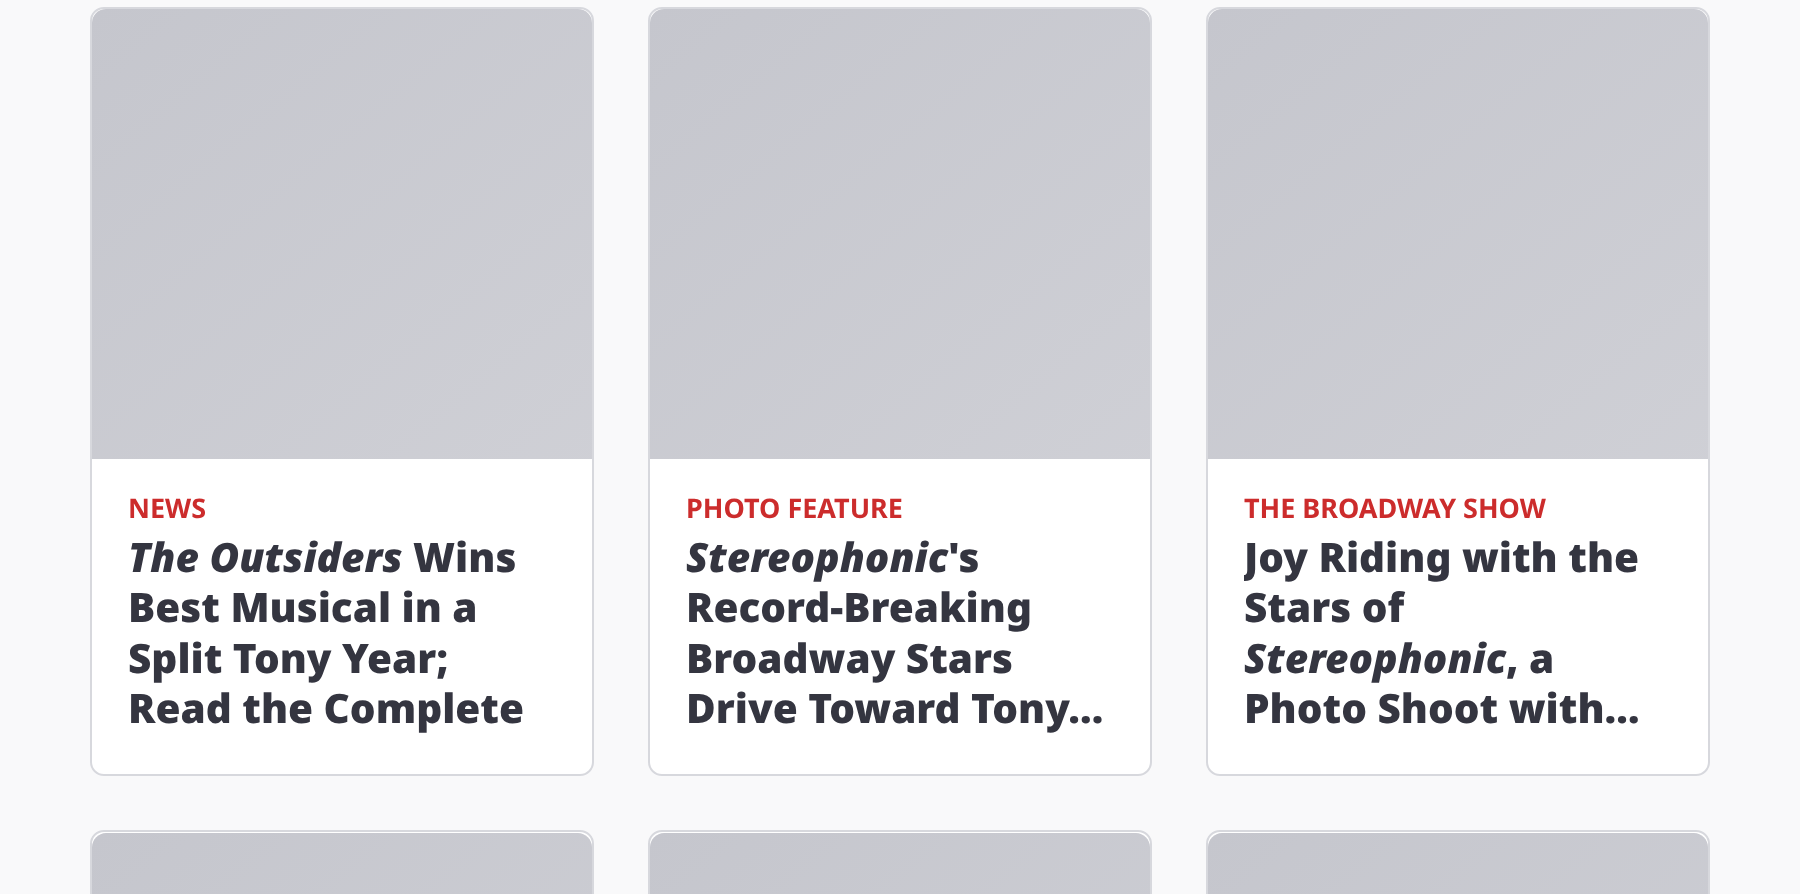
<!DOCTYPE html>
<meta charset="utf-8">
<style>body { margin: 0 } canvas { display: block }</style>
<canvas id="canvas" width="1800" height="894"></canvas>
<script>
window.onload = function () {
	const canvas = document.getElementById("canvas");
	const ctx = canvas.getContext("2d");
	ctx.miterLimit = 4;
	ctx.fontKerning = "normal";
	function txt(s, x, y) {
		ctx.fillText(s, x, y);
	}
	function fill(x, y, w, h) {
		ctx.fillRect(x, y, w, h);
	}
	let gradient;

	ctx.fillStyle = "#F9F9FA";
	fill(0, 0, 1800, 894);
	ctx.fillStyle = "#FFFFFF";
	ctx.beginPath();
	ctx.roundRect(91, 8, 502, 767, 13);
	ctx.fill();
	ctx.strokeStyle = "#D7D8DD";
	ctx.lineWidth = 2;
	ctx.stroke();
	gradient = ctx.createLinearGradient(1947, 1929, 235, -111);
	gradient.addColorStop(0, "#ECECEF");
	gradient.addColorStop(1, "#C5C6CD");
	ctx.fillStyle = gradient;
	ctx.beginPath();
	ctx.roundRect(92, 9, 500, 450, [14, 14, 0, 0]);
	ctx.fill();
	ctx.fillStyle = "#FFFFFF";
	ctx.beginPath();
	ctx.roundRect(649, 8, 502, 767, 13);
	ctx.fill();
	ctx.stroke();
	gradient = ctx.createLinearGradient(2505, 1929, 793, -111);
	gradient.addColorStop(0, "#ECECEF");
	gradient.addColorStop(1, "#C5C6CD");
	ctx.fillStyle = gradient;
	ctx.beginPath();
	ctx.roundRect(650, 9, 500, 450, [14, 14, 0, 0]);
	ctx.fill();
	ctx.fillStyle = "#FFFFFF";
	ctx.beginPath();
	ctx.roundRect(1207, 8, 502, 767, 13);
	ctx.fill();
	ctx.stroke();
	gradient = ctx.createLinearGradient(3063, 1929, 1351, -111);
	gradient.addColorStop(0, "#ECECEF");
	gradient.addColorStop(1, "#C5C6CD");
	ctx.fillStyle = gradient;
	ctx.beginPath();
	ctx.roundRect(1208, 9, 500, 450, [14, 14, 0, 0]);
	ctx.fill();
	ctx.fillStyle = "#FFFFFF";
	ctx.beginPath();
	ctx.roundRect(91, 831, 502, 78, 13);
	ctx.fill();
	ctx.stroke();
	gradient = ctx.createLinearGradient(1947, 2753, 235, 712);
	gradient.addColorStop(0, "#ECECEF");
	gradient.addColorStop(1, "#C5C6CD");
	ctx.fillStyle = gradient;
	ctx.beginPath();
	ctx.moveTo(106, 833);
	ctx.lineTo(578, 833);
	ctx.bezierCurveTo(585.5, 833, 592, 839.5, 592, 847);
	ctx.lineTo(592, 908);
	ctx.lineTo(92, 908);
	ctx.lineTo(92, 847);
	ctx.bezierCurveTo(92, 839.5, 98.5, 833, 106, 833);
	ctx.closePath();
	ctx.fill();
	ctx.fillStyle = "#FFFFFF";
	ctx.beginPath();
	ctx.roundRect(649, 831, 502, 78, 13);
	ctx.fill();
	ctx.stroke();
	gradient = ctx.createLinearGradient(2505, 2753, 793, 712);
	gradient.addColorStop(0, "#ECECEF");
	gradient.addColorStop(1, "#C5C6CD");
	ctx.fillStyle = gradient;
	ctx.beginPath();
	ctx.moveTo(664, 833);
	ctx.lineTo(1136, 833);
	ctx.bezierCurveTo(1143.5, 833, 1150, 839.5, 1150, 847);
	ctx.lineTo(1150, 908);
	ctx.lineTo(650, 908);
	ctx.lineTo(650, 847);
	ctx.bezierCurveTo(650, 839.5, 656.5, 833, 664, 833);
	ctx.closePath();
	ctx.fill();
	ctx.fillStyle = "#FFFFFF";
	ctx.beginPath();
	ctx.roundRect(1207, 831, 502, 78, 13);
	ctx.fill();
	ctx.stroke();
	gradient = ctx.createLinearGradient(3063, 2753, 1351, 712);
	gradient.addColorStop(0, "#ECECEF");
	gradient.addColorStop(1, "#C5C6CD");
	ctx.fillStyle = gradient;
	ctx.beginPath();
	ctx.moveTo(1222, 833);
	ctx.lineTo(1694, 833);
	ctx.bezierCurveTo(1701.5, 833, 1708, 839.5, 1708, 847);
	ctx.lineTo(1708, 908);
	ctx.lineTo(1208, 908);
	ctx.lineTo(1208, 847);
	ctx.bezierCurveTo(1208, 839.5, 1214.5, 833, 1222, 833);
	ctx.closePath();
	ctx.fill();
	ctx.font = "bold 27px Noto Sans";
	ctx.fillStyle = "#CC2C2C";
	txt("NEWS", 128, 518);
	ctx.font = "italic 900 40.5px Noto Sans";
	ctx.fillStyle = "#343540";
	txt("The Outsiders", 128, 572);
	ctx.font = "900 40.5px Noto Sans";
	txt("Wins", 413, 572);
	txt("Best Musical in a", 128, 622);
	txt("Split Tony Year;", 128, 673);
	txt("Read the Complete", 128, 723);
	ctx.font = "bold 27px Noto Sans";
	ctx.fillStyle = "#CC2C2C";
	txt("PHOTO FEATURE", 686, 518);
	ctx.font = "italic 900 40.5px Noto Sans";
	ctx.fillStyle = "#343540";
	txt("Stereophonic", 686, 572);
	ctx.font = "900 40.5px Noto Sans";
	txt("'s", 948, 572);
	txt("Record-Breaking", 686, 622);
	txt("Broadway Stars", 686, 673);
	txt("Drive Toward Tony…", 686, 723);
	ctx.font = "bold 27px Noto Sans";
	ctx.fillStyle = "#CC2C2C";
	txt("THE BROADWAY SHOW", 1244, 518);
	ctx.save();
	ctx.beginPath();
	ctx.rect(1244, 531, 428, 203);
	ctx.clip();
	ctx.font = "900 40.5px Noto Sans";
	ctx.fillStyle = "#343540";
	txt("Joy Riding with the", 1244, 572);
	ctx.restore();
	ctx.font = "900 40.5px Noto Sans";
	ctx.fillStyle = "#343540";
	txt("Stars of", 1244, 622);
	ctx.font = "italic 900 40.5px Noto Sans";
	txt("Stereophonic", 1244, 673);
	ctx.font = "900 40.5px Noto Sans";
	txt(", a", 1506, 673);
	txt("Photo Shoot with…", 1244, 723);
};
</script>
